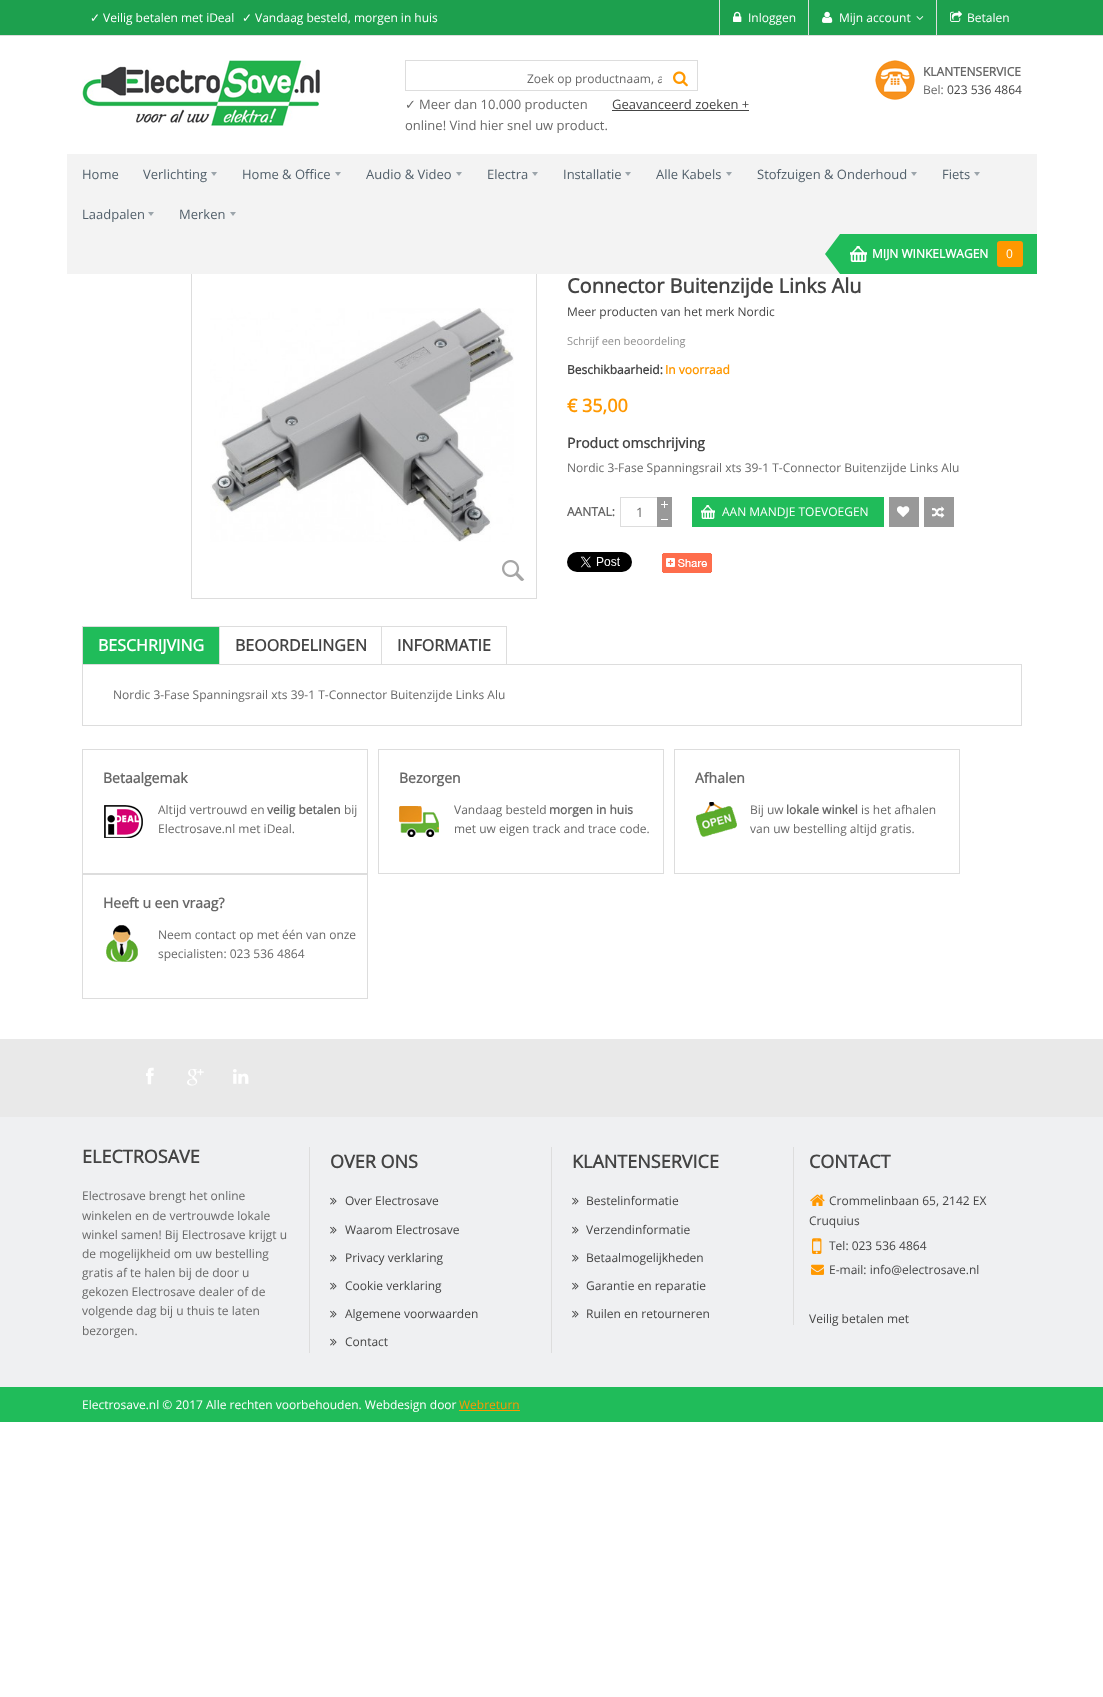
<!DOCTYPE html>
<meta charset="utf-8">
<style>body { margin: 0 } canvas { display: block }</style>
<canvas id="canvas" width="1103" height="1697"></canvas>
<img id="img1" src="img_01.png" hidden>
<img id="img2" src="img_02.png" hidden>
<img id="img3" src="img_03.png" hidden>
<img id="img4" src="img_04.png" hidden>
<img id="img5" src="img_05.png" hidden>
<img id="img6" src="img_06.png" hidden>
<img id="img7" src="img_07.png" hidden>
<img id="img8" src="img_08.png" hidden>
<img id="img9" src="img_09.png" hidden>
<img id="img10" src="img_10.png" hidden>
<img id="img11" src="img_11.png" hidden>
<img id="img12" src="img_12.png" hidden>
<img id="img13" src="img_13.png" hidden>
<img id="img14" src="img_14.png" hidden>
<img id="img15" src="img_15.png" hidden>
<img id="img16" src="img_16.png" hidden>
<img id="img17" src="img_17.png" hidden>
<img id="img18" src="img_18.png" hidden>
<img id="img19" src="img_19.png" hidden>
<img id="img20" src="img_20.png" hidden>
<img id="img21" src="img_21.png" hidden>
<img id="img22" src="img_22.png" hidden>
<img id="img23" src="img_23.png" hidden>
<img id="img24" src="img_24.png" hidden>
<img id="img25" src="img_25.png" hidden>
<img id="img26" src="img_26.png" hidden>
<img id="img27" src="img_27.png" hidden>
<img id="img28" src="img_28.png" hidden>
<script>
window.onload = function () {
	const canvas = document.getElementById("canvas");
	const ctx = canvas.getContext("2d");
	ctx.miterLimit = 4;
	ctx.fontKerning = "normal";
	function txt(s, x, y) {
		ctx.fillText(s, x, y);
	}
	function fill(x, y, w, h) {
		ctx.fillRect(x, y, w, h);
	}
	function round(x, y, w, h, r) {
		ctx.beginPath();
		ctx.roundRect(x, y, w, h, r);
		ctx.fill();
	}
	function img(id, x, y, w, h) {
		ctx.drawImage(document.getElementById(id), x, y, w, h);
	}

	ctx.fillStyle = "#FFFFFF";
	fill(0, 0, 1103, 1697);
	ctx.fillStyle = "#1DA04E";
	fill(0, 0, 1103, 35);
	ctx.fillStyle = "#DDDDDD";
	fill(0, 35, 1103, 1);
	fill(719, 0, 1, 36);
	img("img1", 733, 11, 9, 11);
	fill(808, 0, 1, 36);
	img("img2", 822, 11, 11, 12);
	img("img3", 916, 16, 8, 4);
	fill(936, 0, 1, 36);
	img("img4", 950, 10, 12, 12);
	img("img5", 82, 60, 238, 66);
	ctx.strokeStyle = "#DDDDDD";
	ctx.strokeRect(405.5, 60.5, 292, 30);
	img("img6", 673, 71, 15, 16);
	ctx.fillStyle = "#444444";
	fill(612, 110, 137, 1);
	img("img7", 875, 60, 40, 40);
	ctx.strokeRect(191.5, 253.5, 345, 345);
	ctx.fillStyle = "#F3F3F3";
	fill(67, 154, 970, 120);
	img("img8", 211, 172, 6, 4);
	img("img8", 335, 172, 6, 4);
	img("img8", 456, 172, 6, 4);
	img("img8", 532, 172, 6, 4);
	img("img8", 625, 172, 6, 4);
	img("img8", 726, 172, 6, 4);
	img("img8", 911, 172, 6, 4);
	img("img8", 974, 172, 6, 4);
	img("img8", 148, 212, 6, 4);
	img("img8", 230, 212, 6, 4);
	ctx.fillStyle = "#20BC5A";
	fill(840, 234, 197, 40);
	img("img9", 850, 246, 17, 16);
	ctx.beginPath();
	ctx.moveTo(840, 234);
	ctx.lineTo(840, 274);
	ctx.lineTo(825, 254);
	ctx.closePath();
	ctx.fill();
	ctx.fillStyle = "#FF9800";
	round(997, 241, 26, 26, 3);
	img("img10", 210, 308, 304, 234);
	img("img11", 502, 560, 23, 21);
	ctx.strokeRect(620.5, 497.5, 37, 29);
	ctx.fillStyle = "#999999";
	fill(657, 497, 15, 30);
	img("img12", 661, 501, 7, 7);
	ctx.fillStyle = "#FFFFFF";
	fill(661, 519, 7, 1);
	ctx.fillStyle = "#20BC5A";
	fill(692, 497, 192, 30);
	img("img13", 701, 505, 14, 14);
	ctx.fillStyle = "#999999";
	fill(889, 497, 30, 30);
	img("img14", 897, 506, 13, 11);
	fill(924, 497, 30, 30);
	img("img15", 932, 506, 13, 12);
	img("img16", 567, 552, 65, 20);
	img("img17", 662, 553, 50, 20);
	ctx.fillStyle = "#DDDDDD";
	fill(82, 626, 138, 1);
	fill(219, 626, 1, 38);
	fill(82, 626, 1, 38);
	ctx.fillStyle = "#20BC5A";
	fill(83, 627, 136, 37);
	ctx.fillStyle = "#DDDDDD";
	fill(219, 626, 163, 1);
	fill(381, 626, 1, 38);
	fill(381, 626, 126, 1);
	fill(506, 626, 1, 38);
	ctx.strokeRect(82.5, 664.5, 939, 61);
	ctx.strokeRect(82.5, 749.5, 285, 124);
	img("img18", 104, 805, 39, 33);
	ctx.strokeRect(378.5, 749.5, 285, 124);
	img("img19", 399, 806, 40, 31);
	ctx.strokeRect(674.5, 749.5, 285, 124);
	img("img20", 696, 802, 41, 35);
	ctx.strokeRect(82.5, 874.5, 285, 124);
	img("img21", 106, 925, 32, 37);
	ctx.fillStyle = "#E9E9E9";
	fill(0, 1039, 1103, 78);
	img("img22", 146, 1067, 8, 18);
	img("img23", 187, 1069, 17, 17);
	img("img24", 233, 1069, 16, 15);
	ctx.fillStyle = "#EFF0F2";
	fill(0, 1117, 1103, 270);
	ctx.fillStyle = "#DDDDDD";
	fill(551, 1147, 1, 206);
	fill(309, 1147, 1, 206);
	img("img25", 330, 1197, 7, 8);
	img("img25", 330, 1226, 7, 8);
	img("img25", 330, 1254, 7, 8);
	img("img25", 330, 1282, 7, 8);
	img("img25", 330, 1310, 7, 8);
	img("img25", 330, 1338, 7, 8);
	fill(793, 1147, 1, 178);
	img("img25", 572, 1197, 7, 8);
	img("img25", 572, 1226, 7, 8);
	img("img25", 572, 1254, 7, 8);
	img("img25", 572, 1282, 7, 8);
	img("img25", 572, 1310, 7, 8);
	img("img26", 810, 1194, 15, 12);
	img("img27", 812, 1238, 10, 16);
	img("img28", 811, 1264, 13, 11);
	ctx.fillStyle = "#20BC5A";
	fill(0, 1387, 1103, 35);
	ctx.fillStyle = "#FF9800";
	fill(459, 1410, 61, 1);
	ctx.font = "12px DejaVu Sans";
	ctx.fillStyle = "#FFFFFF";
	txt("✓", 90, 22);
	ctx.font = "12px Open Sans";
	txt("Veilig betalen met iDeal", 103, 22);
	ctx.font = "12px DejaVu Sans";
	txt("✓", 242, 22);
	ctx.font = "12px Open Sans";
	txt("Vandaag besteld, morgen in huis", 255, 22);
	txt("Inloggen", 748, 22);
	txt("Mijn account", 839, 22);
	txt("Betalen", 967, 22);
	ctx.save();
	ctx.beginPath();
	ctx.rect(527, 70, 135, 17);
	ctx.clip();
	ctx.fillStyle = "#686868";
	txt("Zoek op productnaam, a", 527, 83);
	ctx.restore();
	ctx.font = "13px DejaVu Sans";
	ctx.fillStyle = "#686868";
	txt("✓", 405, 109);
	ctx.font = "13px Open Sans";
	txt("Meer dan 10.000 producten", 419, 109);
	txt("online! Vind hier snel uw product.", 405, 130);
	ctx.fillStyle = "#444444";
	txt("Geavanceerd zoeken +", 612, 109);
	ctx.font = "bold 12px Open Sans";
	ctx.fillStyle = "#686868";
	txt("KLANTENSERVICE", 923, 76);
	ctx.font = "12px Open Sans";
	txt("Bel:", 923, 94);
	ctx.fillStyle = "#444444";
	txt("023 536 4864", 947, 94);
	ctx.font = "13px Open Sans";
	ctx.fillStyle = "#515F6A";
	txt("Home", 82, 179);
	txt("Verlichting", 143, 179);
	txt("Home & Office", 242, 179);
	txt("Audio & Video", 366, 179);
	txt("Electra", 487, 179);
	txt("Installatie", 563, 179);
	txt("Alle Kabels", 656, 179);
	txt("Stofzuigen & Onderhoud", 757, 179);
	txt("Fiets", 942, 179);
	txt("Laadpalen", 82, 219);
	txt("Merken", 179, 219);
	ctx.font = "bold 12px Open Sans";
	ctx.fillStyle = "#FFFFFF";
	txt("MIJN WINKELWAGEN", 872, 258);
	ctx.font = "12px Open Sans";
	txt("0", 1006, 258);
	ctx.font = "bold 20px Open Sans";
	ctx.fillStyle = "#444444";
	txt("Connector Buitenzijde Links Alu", 567, 293);
	ctx.font = "12px Open Sans";
	txt("Meer producten van het merk Nordic", 567, 316);
	ctx.font = "11px Open Sans";
	ctx.fillStyle = "#909090";
	txt("Schrijf een beoordeling", 567, 345);
	ctx.font = "bold 12px Open Sans";
	ctx.fillStyle = "#444444";
	txt("Beschikbaarheid:", 567, 374);
	ctx.fillStyle = "#FF9800";
	txt("In voorraad", 665, 374);
	ctx.font = "bold 18px Open Sans";
	txt("€ 35,00", 567, 412);
	ctx.font = "bold 14px Open Sans";
	ctx.fillStyle = "#444444";
	txt("Product omschrijving", 567, 448);
	ctx.font = "12px Open Sans";
	ctx.fillStyle = "#686868";
	txt("Nordic 3-Fase Spanningsrail xts 39-1 T-Connector Buitenzijde Links Alu", 567, 472);
	ctx.font = "bold 12px Open Sans";
	txt("AANTAL:", 567, 516);
	ctx.font = "13px Open Sans";
	txt("1", 636, 517);
	ctx.font = "12px Open Sans";
	ctx.fillStyle = "#FFFFFF";
	txt("AAN MANDJE TOEVOEGEN", 722, 516);
	ctx.font = "bold 16px Open Sans";
	txt("BESCHRIJVING", 98, 651);
	ctx.fillStyle = "#444444";
	txt("BEOORDELINGEN", 235, 651);
	txt("INFORMATIE", 397, 651);
	ctx.font = "12px Open Sans";
	ctx.fillStyle = "#686868";
	txt("Nordic 3-Fase Spanningsrail xts 39-1 T-Connector Buitenzijde Links Alu", 113, 699);
	ctx.font = "bold 14px Open Sans";
	txt("Betaalgemak", 103, 783);
	ctx.font = "12px Open Sans";
	txt("Altijd vertrouwd en", 158, 814);
	ctx.font = "bold 12px Open Sans";
	txt("veilig betalen", 267, 814);
	ctx.font = "12px Open Sans";
	txt("bij", 344, 814);
	txt("Electrosave.nl met iDeal.", 158, 833);
	ctx.font = "bold 14px Open Sans";
	txt("Bezorgen", 399, 783);
	ctx.font = "12px Open Sans";
	txt("Vandaag besteld", 454, 814);
	ctx.font = "bold 12px Open Sans";
	txt("morgen in huis", 549, 814);
	ctx.font = "12px Open Sans";
	txt("met uw eigen track and trace code.", 454, 833);
	ctx.font = "bold 14px Open Sans";
	txt("Afhalen", 695, 783);
	ctx.font = "12px Open Sans";
	txt("Bij uw", 750, 814);
	ctx.font = "bold 12px Open Sans";
	txt("lokale winkel", 786, 814);
	ctx.font = "12px Open Sans";
	txt("is het afhalen", 861, 814);
	txt("van uw bestelling altijd gratis.", 750, 833);
	ctx.font = "bold 14px Open Sans";
	txt("Heeft u een vraag?", 103, 908);
	ctx.font = "12px Open Sans";
	txt("Neem contact op met één van onze", 158, 939);
	txt("specialisten: 023 536 4864", 158, 958);
	ctx.font = "bold 18px Open Sans";
	ctx.fillStyle = "#444444";
	txt("ELECTROSAVE", 82, 1163);
	ctx.font = "12px Open Sans";
	ctx.fillStyle = "#686868";
	txt("Electrosave brengt het online", 82, 1200);
	txt("winkelen en de vertrouwde lokale", 82, 1220);
	txt("winkel samen! Bij Electrosave krijgt u", 82, 1239);
	txt("de mogelijkheid om uw bestelling", 82, 1258);
	txt("gratis af te halen bij de door u", 82, 1277);
	txt("gekozen Electrosave dealer of de", 82, 1296);
	txt("volgende dag bij u thuis te laten", 82, 1315);
	txt("bezorgen.", 82, 1335);
	ctx.font = "bold 18px Open Sans";
	ctx.fillStyle = "#444444";
	txt("OVER ONS", 330, 1168);
	ctx.font = "12px Open Sans";
	txt("Over Electrosave", 345, 1205);
	txt("Waarom Electrosave", 345, 1234);
	txt("Privacy verklaring", 345, 1262);
	txt("Cookie verklaring", 345, 1290);
	txt("Algemene voorwaarden", 345, 1318);
	txt("Contact", 345, 1346);
	ctx.font = "bold 18px Open Sans";
	txt("KLANTENSERVICE", 572, 1168);
	ctx.font = "12px Open Sans";
	txt("Bestelinformatie", 586, 1205);
	txt("Verzendinformatie", 586, 1234);
	txt("Betaalmogelijkheden", 586, 1262);
	txt("Garantie en reparatie", 586, 1290);
	txt("Ruilen en retourneren", 586, 1318);
	ctx.font = "bold 18px Open Sans";
	txt("CONTACT", 809, 1168);
	ctx.font = "12px Open Sans";
	txt("Crommelinbaan 65, 2142 EX", 829, 1205);
	txt("Cruquius", 809, 1225);
	txt("Tel: 023 536 4864", 829, 1250);
	txt("E-mail: info@electrosave.nl", 829, 1274);
	txt("Veilig betalen met", 809, 1323);
	ctx.fillStyle = "#FFFFFF";
	txt("Electrosave.nl © 2017 Alle rechten voorbehouden. Webdesign door", 82, 1409);
	ctx.fillStyle = "#FF9800";
	txt("Webreturn", 459, 1409);
};
</script>
